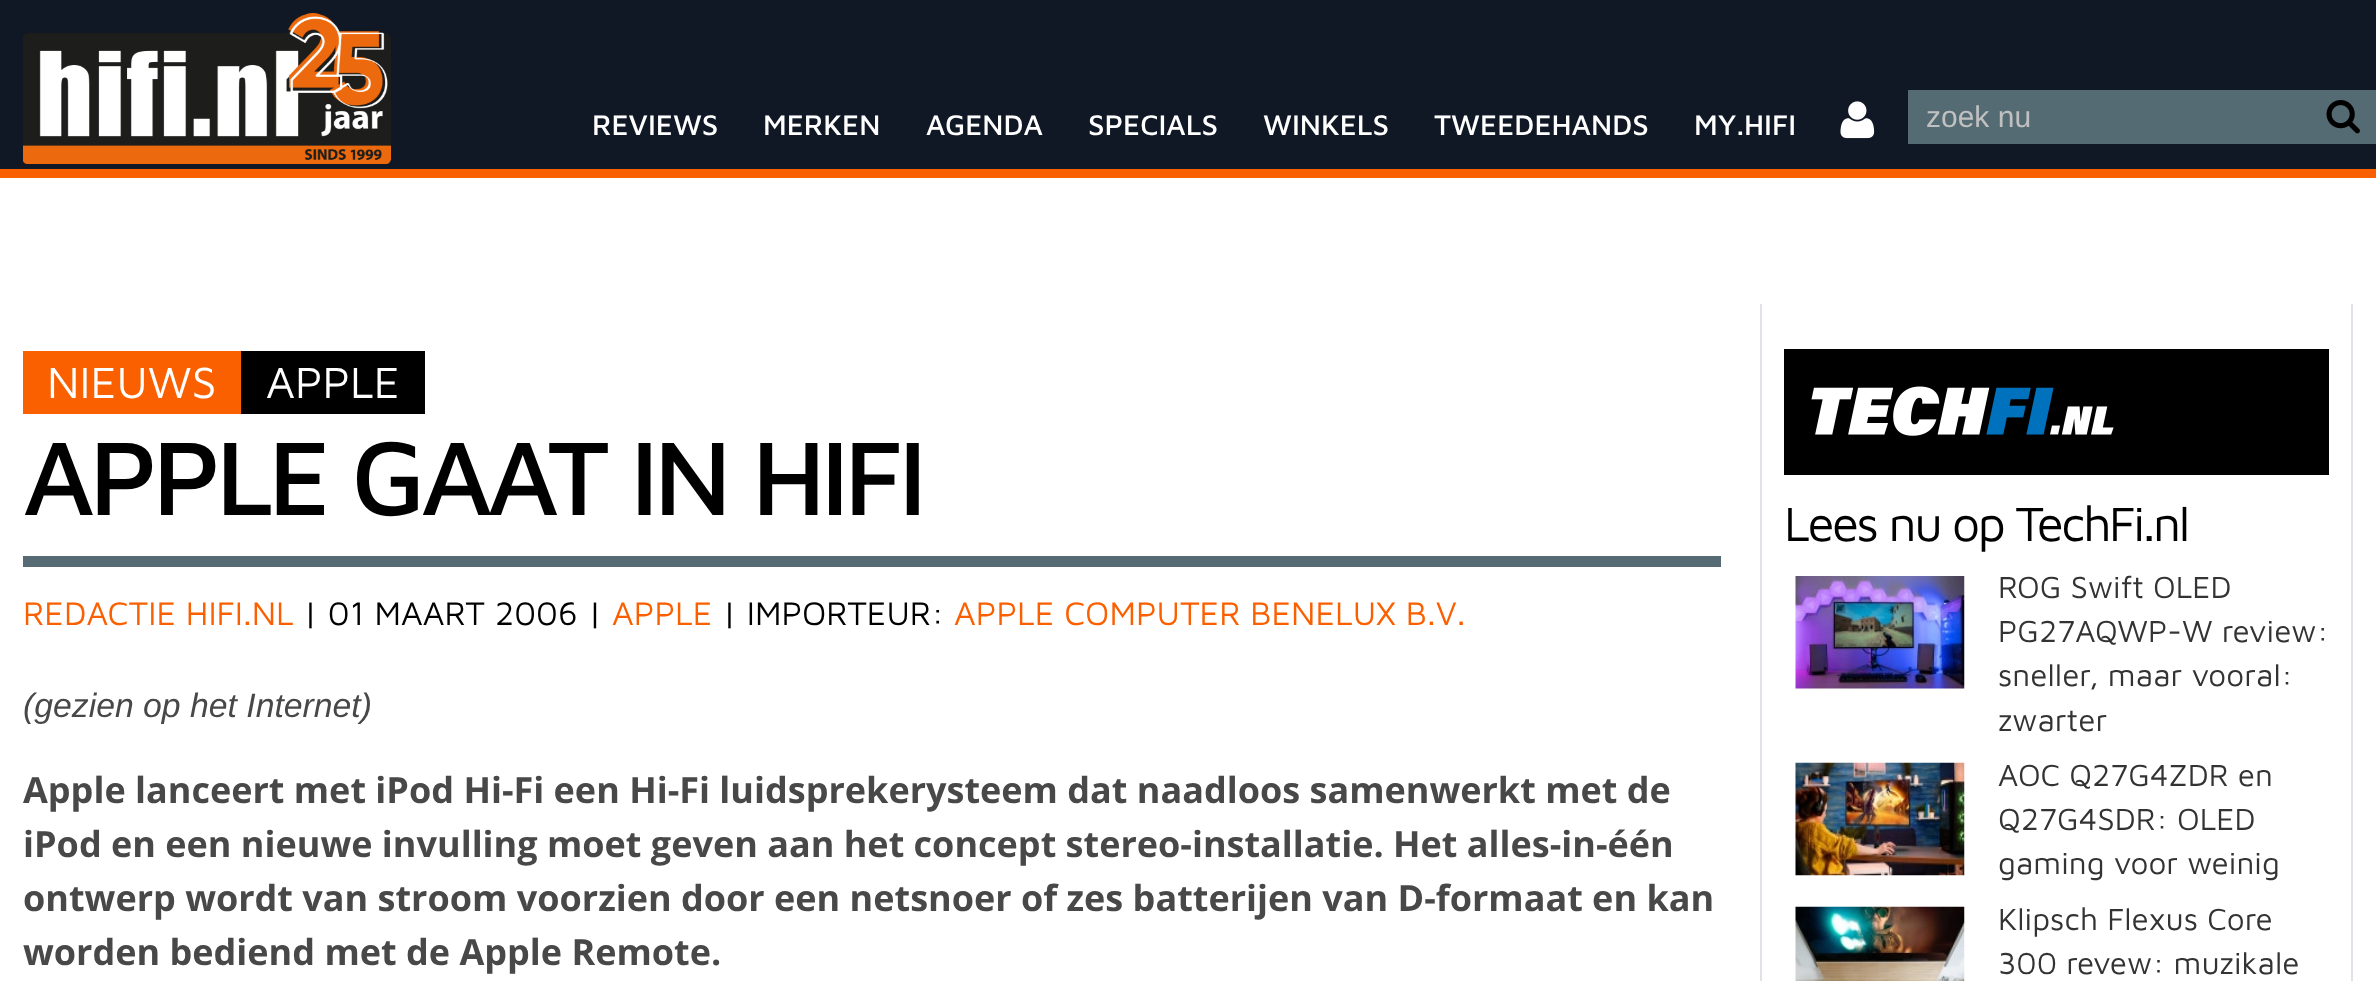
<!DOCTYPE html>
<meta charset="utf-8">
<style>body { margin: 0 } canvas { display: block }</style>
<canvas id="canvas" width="2376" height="981"></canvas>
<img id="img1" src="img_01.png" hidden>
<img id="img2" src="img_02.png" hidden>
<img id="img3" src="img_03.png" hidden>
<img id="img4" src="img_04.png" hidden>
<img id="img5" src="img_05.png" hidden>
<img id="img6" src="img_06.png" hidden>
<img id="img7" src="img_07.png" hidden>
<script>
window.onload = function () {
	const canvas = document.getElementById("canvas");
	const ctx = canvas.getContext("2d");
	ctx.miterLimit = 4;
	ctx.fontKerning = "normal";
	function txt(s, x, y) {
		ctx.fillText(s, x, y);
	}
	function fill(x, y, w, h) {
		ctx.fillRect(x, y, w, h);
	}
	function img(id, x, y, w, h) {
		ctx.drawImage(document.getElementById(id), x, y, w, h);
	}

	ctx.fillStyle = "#FFFFFF";
	fill(0, 0, 2376, 981);
	ctx.fillStyle = "#101825";
	fill(0, 0, 2376, 169);
	ctx.fillStyle = "#FA6000";
	fill(0, 169, 2376, 9);
	img("img1", 23, 13, 369, 151);
	img("img2", 1840, 101, 35, 38);
	ctx.fillStyle = "#546B73";
	fill(1908, 90, 468, 54);
	img("img3", 2326, 100, 34, 34);
	ctx.fillStyle = "#E1E1E8";
	fill(1760, 304, 2, 677);
	fill(2351, 304, 2, 677);
	ctx.font = "500 29.25px Maven Pro";
	ctx.fillStyle = "#FFFFFF";
	txt("REVIEWS", 592, 135);
	txt("MERKEN", 763, 135);
	txt("AGENDA", 926, 135);
	txt("SPECIALS", 1088, 135);
	txt("WINKELS", 1263, 135);
	txt("TWEEDEHANDS", 1434, 135);
	txt("MY.HIFI", 1694, 135);
	ctx.font = "30px Liberation Sans";
	ctx.fillStyle = "#C0C0C0";
	txt("zoek nu", 1926, 127);
	ctx.letterSpacing = "-5.4px";
	ctx.font = "500 108px Maven Pro";
	ctx.fillStyle = "#000000";
	txt("APPLE GAAT IN HIFI", 23, 515);
	ctx.letterSpacing = "0px";
	ctx.font = "33.75px Maven Pro";
	ctx.fillStyle = "#FA6000";
	txt("REDACTIE HIFI.NL", 23, 625);
	ctx.fillStyle = "#000000";
	txt("| 01 MAART 2006 |", 303, 625);
	ctx.fillStyle = "#FA6000";
	txt("APPLE", 612, 625);
	ctx.fillStyle = "#000000";
	txt("| IMPORTEUR:", 722, 625);
	ctx.fillStyle = "#FA6000";
	txt("APPLE COMPUTER BENELUX B.V.", 954, 625);
	ctx.font = "italic 33.75px Liberation Sans";
	ctx.fillStyle = "#484848";
	txt("(gezien op het Internet)", 23, 717);
	ctx.font = "bold 36px Open Sans";
	txt("Apple lanceert met iPod Hi-Fi een Hi-Fi luidsprekerysteem dat naadloos samenwerkt met de", 23, 803);
	txt("iPod en een nieuwe invulling moet geven aan het concept stereo-installatie. Het alles-in-één", 23, 857);
	txt("ontwerp wordt van stroom voorzien door een netsnoer of zes batterijen van D-formaat en kan", 23, 911);
	txt("worden bediend met de Apple Remote.", 23, 965);
	ctx.strokeStyle = "#FFFFFF";
	ctx.lineWidth = 16;
	ctx.strokeRect(15, 296, 2346, 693);
	ctx.fillStyle = "#576B74";
	fill(23, 556, 1698, 11);
	ctx.fillStyle = "#000000";
	fill(241, 351, 184, 63);
	ctx.font = "45px Maven Pro";
	ctx.fillStyle = "#FFFFFF";
	txt("APPLE", 266, 398);
	ctx.fillStyle = "#FA6000";
	fill(23, 351, 218, 63);
	ctx.fillStyle = "#FFFFFF";
	txt("NIEUWS", 47, 398);
	ctx.fillStyle = "#000000";
	fill(1784, 349, 545, 126);
	img("img4", 1811, 386, 303, 50);
	ctx.letterSpacing = "-2.5px";
	ctx.font = "49.5px Maven Pro";
	txt("Lees nu op TechFi.nl", 1784, 541);
	img("img5", 1795, 576, 170, 113);
	ctx.letterSpacing = "0px";
	ctx.font = "31.5px Maven Pro";
	ctx.fillStyle = "#333333";
	txt("ROG Swift OLED", 1998, 598);
	txt("PG27AQWP-W review:", 1998, 642);
	txt("sneller, maar vooral:", 1998, 686);
	txt("zwarter", 1998, 731);
	img("img6", 1795, 762, 170, 114);
	txt("AOC Q27G4ZDR en", 1998, 786);
	txt("Q27G4SDR: OLED", 1998, 830);
	txt("gaming voor weinig", 1998, 874);
	img("img7", 1795, 906, 170, 75);
	txt("Klipsch Flexus Core", 1998, 930);
	txt("300 revew: muzikale", 1998, 974);
};
</script>
